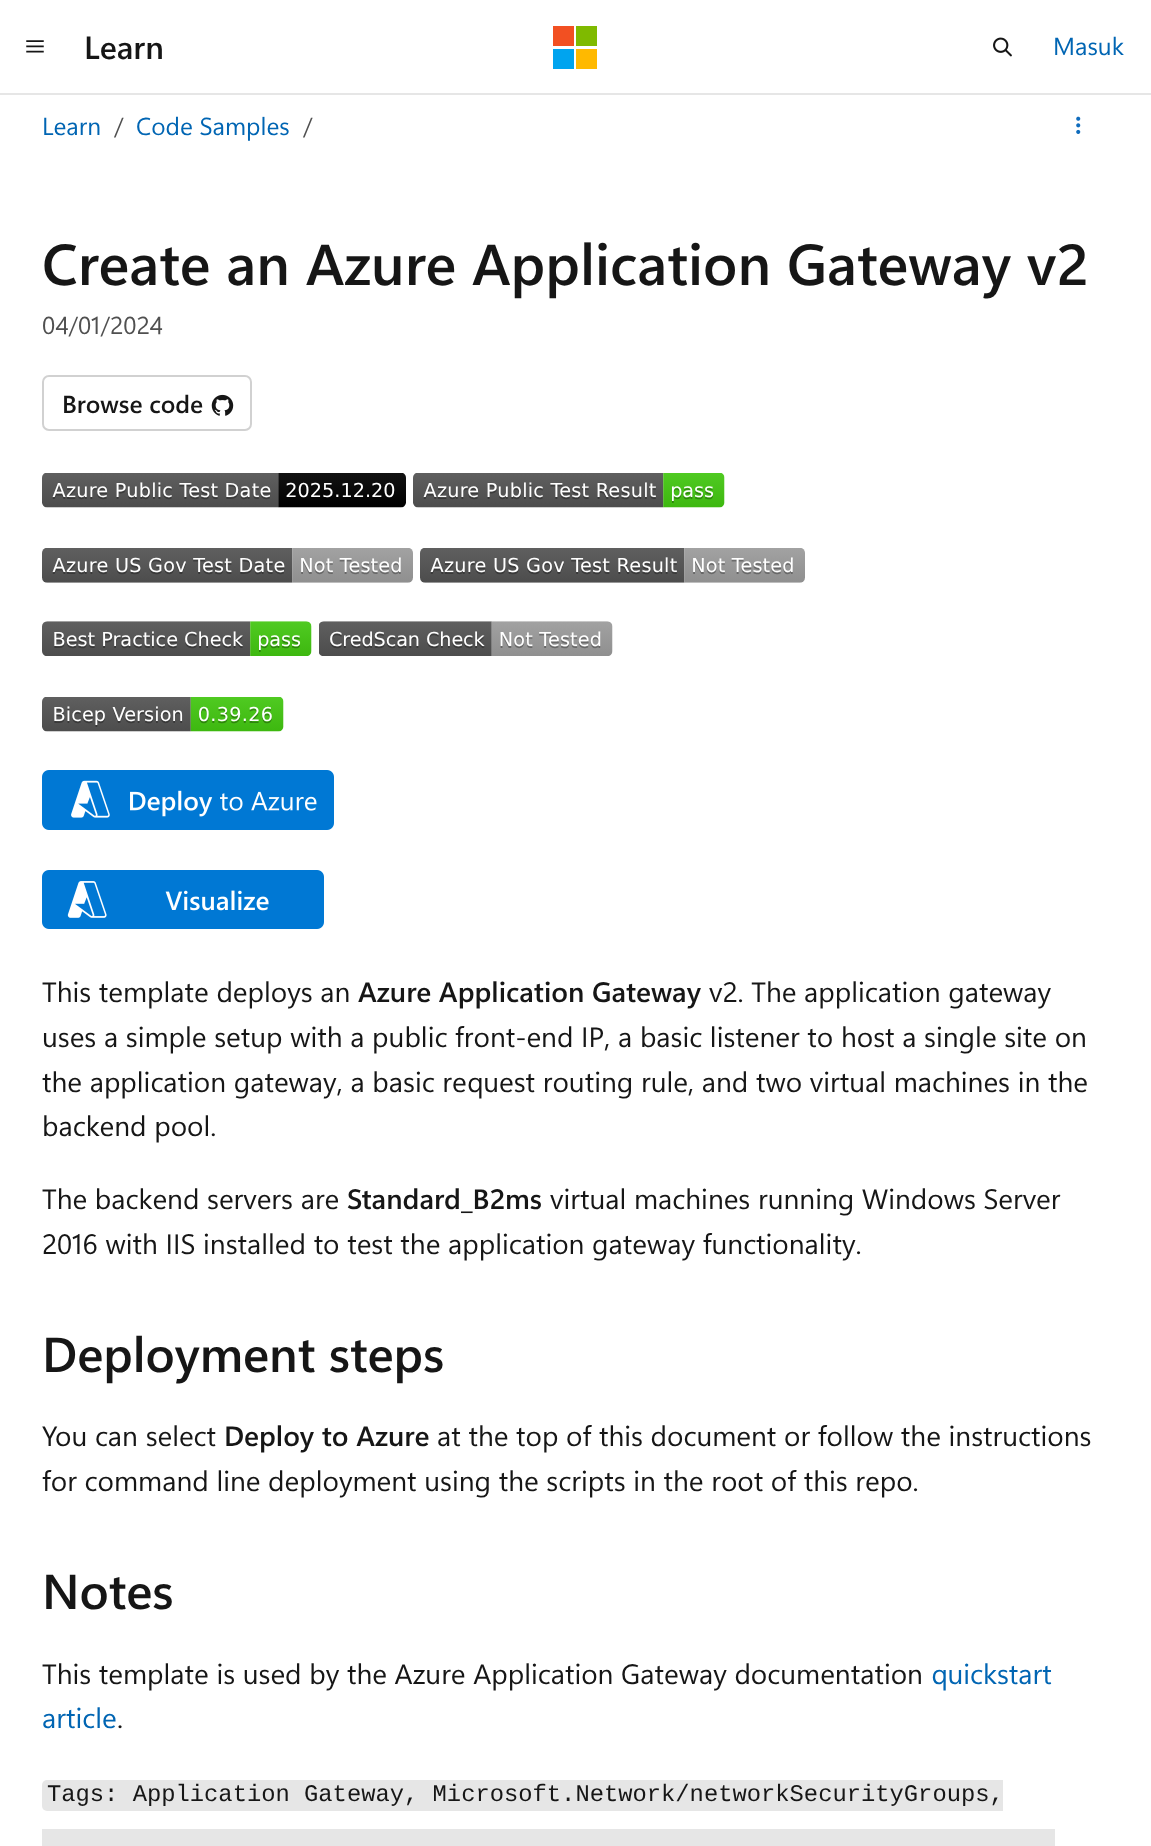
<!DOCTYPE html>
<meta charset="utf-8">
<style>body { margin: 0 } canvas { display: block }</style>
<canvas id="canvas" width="1151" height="1846"></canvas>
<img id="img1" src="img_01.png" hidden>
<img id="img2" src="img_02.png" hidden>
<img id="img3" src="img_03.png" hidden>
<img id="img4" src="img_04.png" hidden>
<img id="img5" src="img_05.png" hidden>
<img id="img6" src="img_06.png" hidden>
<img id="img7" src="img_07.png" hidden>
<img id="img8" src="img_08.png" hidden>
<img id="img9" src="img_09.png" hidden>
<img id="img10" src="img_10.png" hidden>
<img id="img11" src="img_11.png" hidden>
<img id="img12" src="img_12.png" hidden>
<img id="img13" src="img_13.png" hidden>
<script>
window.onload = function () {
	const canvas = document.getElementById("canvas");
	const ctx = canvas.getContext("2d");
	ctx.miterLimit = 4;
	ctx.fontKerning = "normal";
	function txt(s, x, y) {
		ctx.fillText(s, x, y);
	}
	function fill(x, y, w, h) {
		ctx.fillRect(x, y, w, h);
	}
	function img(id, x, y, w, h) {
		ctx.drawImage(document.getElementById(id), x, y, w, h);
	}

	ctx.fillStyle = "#FFFFFF";
	fill(0, 0, 1151, 1846);
	ctx.fillStyle = "#E6E6E6";
	fill(0, 93, 1151, 2);
	img("img1", 26, 40, 18, 13);
	ctx.fillStyle = "#F25022";
	fill(553, 26, 21, 20);
	ctx.fillStyle = "#7FBA00";
	fill(576, 26, 21, 20);
	ctx.fillStyle = "#00A4EF";
	fill(553, 49, 21, 20);
	ctx.fillStyle = "#FFB900";
	fill(576, 49, 21, 20);
	img("img2", 993, 37, 19, 20);
	img("img3", 1076, 116, 5, 18);
	ctx.beginPath();
	ctx.roundRect(43, 376, 208, 54, 6);
	ctx.strokeStyle = "#D1D1D1";
	ctx.lineWidth = 2;
	ctx.stroke();
	img("img4", 211, 394, 23, 22);
	img("img5", 42, 473, 364, 35);
	img("img6", 413, 473, 312, 35);
	img("img7", 42, 548, 371, 35);
	img("img8", 420, 548, 385, 35);
	img("img9", 42, 621, 270, 35);
	img("img10", 319, 621, 294, 35);
	img("img11", 42, 697, 242, 35);
	img("img12", 42, 770, 292, 60);
	img("img13", 42, 870, 282, 59);
	ctx.fillStyle = "#E6E6E6";
	ctx.beginPath();
	ctx.roundRect(42, 1780, 961, 31, [5, 0, 0, 5]);
	ctx.fill();
	fill(42, 1829, 1013, 17);
	ctx.font = "600 32px Segoe UI";
	ctx.fillStyle = "#161616";
	txt("Learn", 84, 59);
	ctx.font = "24.5px Segoe UI";
	ctx.fillStyle = "#0065B3";
	txt("Masuk", 1053, 55);
	txt("Learn", 42, 135);
	ctx.fillStyle = "#505050";
	txt("/", 114, 135);
	ctx.fillStyle = "#0065B3";
	txt("Code Samples", 136, 135);
	ctx.fillStyle = "#505050";
	txt("/", 303, 135);
	ctx.font = "600 57.6px Segoe UI";
	ctx.fillStyle = "#161616";
	txt("Create an Azure Application Gateway v2", 42, 285);
	ctx.font = "24.5px Segoe UI";
	ctx.fillStyle = "#505050";
	txt("04/01/2024", 42, 334);
	ctx.font = "600 24.5px Segoe UI";
	ctx.fillStyle = "#161616";
	txt("Browse code", 62, 413);
	ctx.font = "28px Segoe UI";
	txt("This template deploys an", 42, 1002);
	ctx.font = "600 28px Segoe UI";
	txt("Azure Application Gateway", 358, 1002);
	ctx.font = "28px Segoe UI";
	txt("v2. The application gateway", 709, 1002);
	txt("uses a simple setup with a public front-end IP, a basic listener to host a single site on", 42, 1047);
	txt("the application gateway, a basic request routing rule, and two virtual machines in the", 42, 1092);
	txt("backend pool.", 42, 1136);
	txt("The backend servers are", 42, 1209);
	ctx.font = "600 28px Segoe UI";
	txt("Standard_B2ms", 347, 1209);
	ctx.font = "28px Segoe UI";
	txt("virtual machines running Windows Server", 550, 1209);
	txt("2016 with IIS installed to test the application gateway functionality.", 42, 1254);
	ctx.font = "600 49px Segoe UI";
	txt("Deployment steps", 42, 1372);
	ctx.font = "28px Segoe UI";
	txt("You can select", 42, 1446);
	ctx.font = "600 28px Segoe UI";
	txt("Deploy to Azure", 224, 1446);
	ctx.font = "28px Segoe UI";
	txt("at the top of this document or follow the instructions", 437, 1446);
	txt("for command line deployment using the scripts in the root of this repo.", 42, 1491);
	ctx.font = "600 49px Segoe UI";
	txt("Notes", 42, 1609);
	ctx.font = "28px Segoe UI";
	txt("This template is used by the Azure Application Gateway documentation", 42, 1684);
	ctx.fillStyle = "#0065B3";
	txt("quickstart", 931, 1684);
	txt("article", 42, 1728);
	ctx.fillStyle = "#161616";
	txt(".", 117, 1728);
	ctx.font = "23.8px Liberation Mono";
	txt("Tags: Application Gateway, Microsoft.Network/networkSecurityGroups,", 47, 1801);
};
</script>
